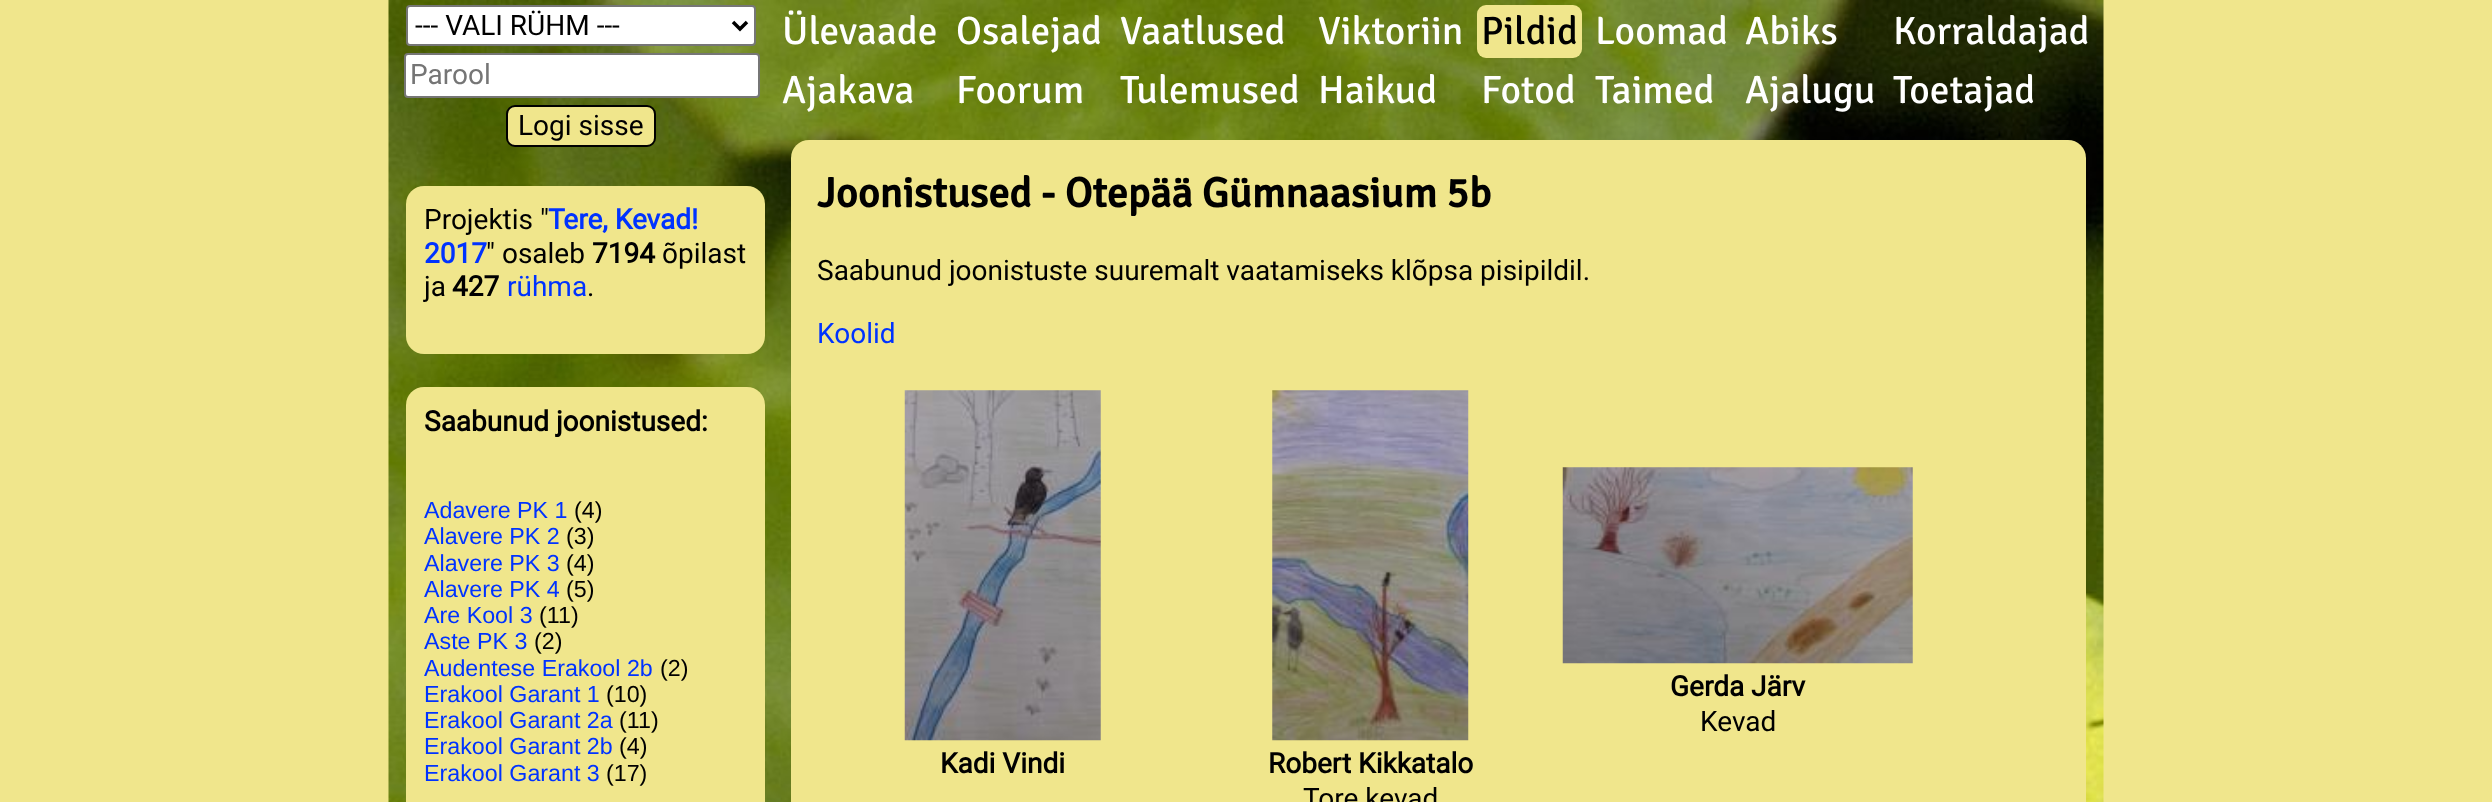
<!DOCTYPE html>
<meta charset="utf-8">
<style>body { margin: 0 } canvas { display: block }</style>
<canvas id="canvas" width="2492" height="802"></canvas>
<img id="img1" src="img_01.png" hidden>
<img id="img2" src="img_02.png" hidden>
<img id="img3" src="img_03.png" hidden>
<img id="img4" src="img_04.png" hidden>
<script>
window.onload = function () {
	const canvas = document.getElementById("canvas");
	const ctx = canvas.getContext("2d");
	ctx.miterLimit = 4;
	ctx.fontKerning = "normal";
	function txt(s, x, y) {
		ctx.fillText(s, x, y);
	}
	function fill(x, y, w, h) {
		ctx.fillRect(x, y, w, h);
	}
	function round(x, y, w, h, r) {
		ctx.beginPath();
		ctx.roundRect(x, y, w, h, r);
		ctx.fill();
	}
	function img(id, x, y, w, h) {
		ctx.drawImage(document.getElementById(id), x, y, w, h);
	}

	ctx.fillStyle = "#F0E68C";
	fill(0, 0, 2492, 802);
	img("img1", 388, 0, 1716, 802);
	ctx.fillStyle = "#FFFFFF";
	ctx.beginPath();
	ctx.roundRect(407, 6, 348, 39, 3);
	ctx.fill();
	ctx.strokeStyle = "#767676";
	ctx.lineWidth = 2;
	ctx.stroke();
	ctx.beginPath();
	ctx.moveTo(733, 22);
	ctx.lineTo(740, 29);
	ctx.lineTo(747, 22);
	ctx.strokeStyle = "#000000";
	ctx.lineWidth = 3.5;
	ctx.stroke();
	ctx.beginPath();
	ctx.roundRect(405, 54, 354, 43, 3);
	ctx.fill();
	ctx.strokeStyle = "#767676";
	ctx.lineWidth = 2;
	ctx.stroke();
	ctx.fillStyle = "#F0E68C";
	ctx.beginPath();
	ctx.roundRect(507, 106, 148, 40, 8);
	ctx.fill();
	ctx.strokeStyle = "#000000";
	ctx.stroke();
	round(406, 186, 359, 168, 18);
	round(406, 387, 359, 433, 18);
	round(1477, 5, 105, 53, 9);
	round(791, 140, 1295, 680, 18);
	img("img2", 1562, 467, 351, 197);
	img("img3", 904, 390, 197, 351);
	img("img4", 1272, 390, 197, 351);
	ctx.font = "28px Roboto";
	ctx.fillStyle = "#000000";
	txt("--- VALI RÜHM ---", 415, 35);
	ctx.fillStyle = "#757575";
	txt("Parool", 410, 84);
	ctx.fillStyle = "#000000";
	txt("Logi sisse", 518, 135);
	txt("Projektis \"", 424, 229);
	ctx.font = "bold 28px Roboto";
	ctx.fillStyle = "#0033FF";
	txt("Tere, Kevad!", 548, 229);
	txt("2017", 424, 263);
	ctx.font = "28px Roboto";
	ctx.fillStyle = "#000000";
	txt("\" osaleb", 486, 263);
	ctx.font = "bold 28px Roboto";
	txt("7194", 592, 263);
	ctx.font = "28px Roboto";
	txt("õpilast", 662, 263);
	txt("ja", 424, 296);
	ctx.font = "bold 28px Roboto";
	txt("427", 452, 296);
	ctx.font = "28px Roboto";
	ctx.fillStyle = "#0033FF";
	txt("rühma", 507, 296);
	ctx.fillStyle = "#000000";
	txt(".", 587, 296);
	ctx.font = "bold 28px Roboto";
	txt("Saabunud joonistused:", 424, 431);
	ctx.font = "23.25px Liberation Sans";
	ctx.fillStyle = "#0033FF";
	txt("Adavere PK 1", 424, 518);
	ctx.fillStyle = "#000000";
	txt("(4)", 574, 518);
	ctx.fillStyle = "#0033FF";
	txt("Alavere PK 2", 424, 544);
	ctx.fillStyle = "#000000";
	txt("(3)", 566, 544);
	ctx.fillStyle = "#0033FF";
	txt("Alavere PK 3", 424, 571);
	ctx.fillStyle = "#000000";
	txt("(4)", 566, 571);
	ctx.fillStyle = "#0033FF";
	txt("Alavere PK 4", 424, 597);
	ctx.fillStyle = "#000000";
	txt("(5)", 566, 597);
	ctx.fillStyle = "#0033FF";
	txt("Are Kool 3", 424, 623);
	ctx.fillStyle = "#000000";
	txt("(11)", 539, 623);
	ctx.fillStyle = "#0033FF";
	txt("Aste PK 3", 424, 649);
	ctx.fillStyle = "#000000";
	txt("(2)", 534, 649);
	ctx.fillStyle = "#0033FF";
	txt("Audentese Erakool 2b", 424, 676);
	ctx.fillStyle = "#000000";
	txt("(2)", 660, 676);
	ctx.fillStyle = "#0033FF";
	txt("Erakool Garant 1", 424, 702);
	ctx.fillStyle = "#000000";
	txt("(10)", 606, 702);
	ctx.fillStyle = "#0033FF";
	txt("Erakool Garant 2a", 424, 728);
	ctx.fillStyle = "#000000";
	txt("(11)", 619, 728);
	ctx.fillStyle = "#0033FF";
	txt("Erakool Garant 2b", 424, 754);
	ctx.fillStyle = "#000000";
	txt("(4)", 619, 754);
	ctx.fillStyle = "#0033FF";
	txt("Erakool Garant 3", 424, 781);
	ctx.fillStyle = "#000000";
	txt("(17)", 606, 781);
	ctx.font = "300 39.5px Signika";
	ctx.fillStyle = "#FFFFFF";
	txt("Ülevaade", 782, 44);
	txt("Osalejad", 956, 44);
	txt("Vaatlused", 1120, 44);
	txt("Viktoriin", 1318, 44);
	ctx.fillStyle = "#000000";
	txt("Pildid", 1481, 44);
	ctx.fillStyle = "#FFFFFF";
	txt("Loomad", 1595, 44);
	txt("Abiks", 1745, 44);
	txt("Korraldajad", 1893, 44);
	txt("Ajakava", 782, 103);
	txt("Foorum", 956, 103);
	txt("Tulemused", 1120, 103);
	txt("Haikud", 1318, 103);
	txt("Fotod", 1481, 103);
	txt("Taimed", 1595, 103);
	txt("Ajalugu", 1745, 103);
	txt("Toetajad", 1893, 103);
	ctx.font = "bold 42px Signika";
	ctx.fillStyle = "#000000";
	txt("Joonistused - Otepää Gümnaasium 5b", 817, 207);
	ctx.font = "28px Roboto";
	txt("Saabunud joonistuste suuremalt vaatamiseks klõpsa pisipildil.", 817, 280);
	ctx.fillStyle = "#0033FF";
	txt("Koolid", 817, 343);
	ctx.font = "bold 28px Roboto";
	ctx.fillStyle = "#000000";
	txt("Gerda Järv", 1670, 696);
	ctx.font = "28px Roboto";
	txt("Kevad", 1700, 731);
	ctx.font = "bold 28px Roboto";
	txt("Kadi Vindi", 940, 773);
	txt("Robert Kikkatalo", 1268, 773);
	ctx.font = "28px Roboto";
	txt("Tore kevad", 1303, 808);
};
</script>
